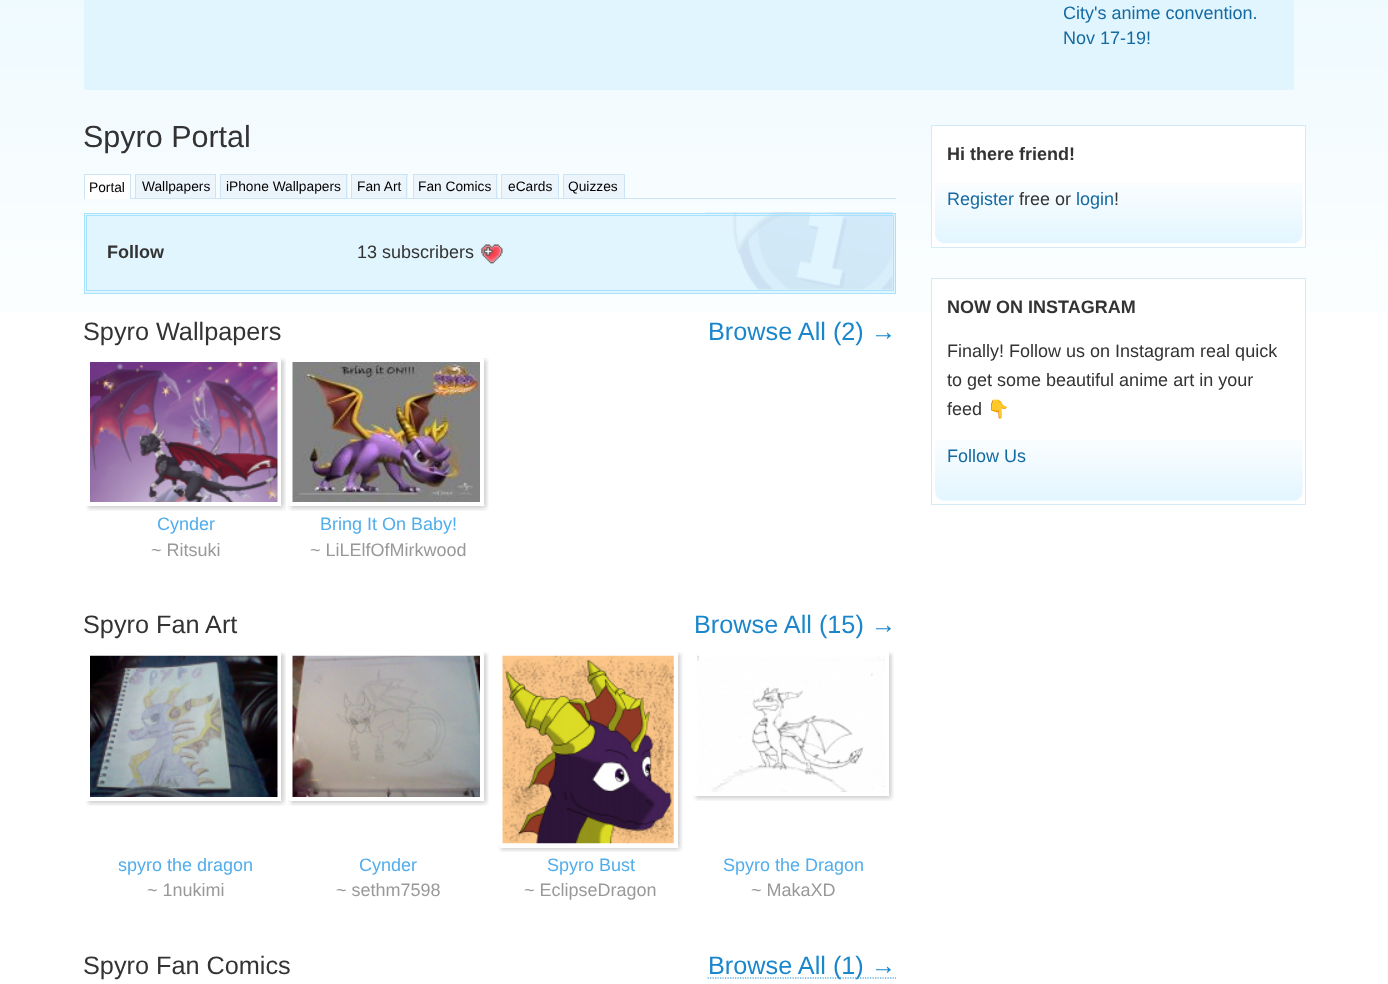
<!DOCTYPE html>
<meta charset="utf-8">
<style>body { margin: 0 } canvas { display: block }</style>
<canvas id="canvas" width="1388" height="984"></canvas>
<img id="img1" src="img_01.png" hidden>
<img id="img2" src="img_02.png" hidden>
<img id="img3" src="img_03.png" hidden>
<img id="img4" src="img_04.png" hidden>
<img id="img5" src="img_05.png" hidden>
<img id="img6" src="img_06.png" hidden>
<img id="img7" src="img_07.png" hidden>
<img id="img8" src="img_08.png" hidden>
<img id="img9" src="img_09.png" hidden>
<img id="img10" src="img_10.png" hidden>
<img id="img11" src="img_11.png" hidden>
<img id="img12" src="img_12.png" hidden>
<img id="img13" src="img_13.png" hidden>
<img id="img14" src="img_14.png" hidden>
<img id="img15" src="img_15.png" hidden>
<img id="img16" src="img_16.png" hidden>
<img id="img17" src="img_17.png" hidden>
<img id="img18" src="img_18.png" hidden>
<img id="img19" src="img_19.png" hidden>
<img id="img20" src="img_20.png" hidden>
<img id="img21" src="img_21.png" hidden>
<img id="img22" src="img_22.png" hidden>
<img id="img23" src="img_23.png" hidden>
<script>
window.onload = function () {
	const canvas = document.getElementById("canvas");
	const ctx = canvas.getContext("2d");
	ctx.miterLimit = 4;
	ctx.fontKerning = "normal";
	function txt(s, x, y) {
		ctx.fillText(s, x, y);
	}
	function fill(x, y, w, h) {
		ctx.fillRect(x, y, w, h);
	}
	function img(id, x, y, w, h) {
		ctx.drawImage(document.getElementById(id), x, y, w, h);
	}

	ctx.fillStyle = "#FFFFFF";
	fill(0, 0, 1388, 984);
	img("img1", 0, 0, 1388, 312);
	ctx.fillStyle = "#E1F5FF";
	fill(84, 0, 1210, 90);
	ctx.fillStyle = "#CBE5F6";
	fill(131, 198, 765, 1);
	ctx.fillStyle = "#FFFFFF";
	fill(85, 175, 45, 24);
	ctx.fillStyle = "#CBE5F6";
	fill(84, 174, 47, 1);
	fill(130, 174, 1, 25);
	fill(84, 174, 1, 25);
	ctx.fillStyle = "#EDF5FC";
	fill(136, 175, 79, 23);
	ctx.fillStyle = "#CBE5F6";
	fill(135, 174, 81, 1);
	fill(215, 174, 1, 24);
	fill(135, 174, 1, 24);
	ctx.fillStyle = "#EDF5FC";
	fill(221, 175, 127, 23);
	ctx.fillStyle = "#CBE5F6";
	fill(220, 174, 128, 1);
	fill(346, 174, 1, 24);
	fill(220, 174, 1, 24);
	ctx.fillStyle = "#EDF5FC";
	fill(352, 175, 56, 23);
	ctx.fillStyle = "#CBE5F6";
	fill(351, 174, 57, 1);
	fill(406, 174, 1, 24);
	fill(351, 174, 1, 24);
	ctx.fillStyle = "#EDF5FC";
	fill(414, 175, 84, 23);
	ctx.fillStyle = "#CBE5F6";
	fill(413, 174, 85, 1);
	fill(496, 174, 1, 24);
	fill(413, 174, 1, 24);
	ctx.fillStyle = "#EDF5FC";
	fill(502, 175, 56, 23);
	ctx.fillStyle = "#CBE5F6";
	fill(501, 174, 58, 1);
	fill(558, 174, 1, 24);
	fill(501, 174, 1, 24);
	ctx.fillStyle = "#EDF5FC";
	fill(564, 175, 60, 23);
	ctx.fillStyle = "#CBE5F6";
	fill(563, 174, 62, 1);
	fill(624, 174, 1, 24);
	fill(563, 174, 1, 24);
	ctx.fillStyle = "#E1F5FF";
	fill(85, 214, 810, 79);
	img("img2", 705, 212, 188, 78);
	ctx.strokeStyle = "#A8E2FF";
	ctx.strokeRect(84.5, 213.5, 811, 80);
	ctx.strokeRect(86.5, 215.5, 807, 75);
	img("img3", 481, 244, 22, 20);
	img("img4", 86, 358, 200, 153);
	img("img5", 86, 358, 200, 153);
	ctx.strokeStyle = "#FFFFFF";
	ctx.lineWidth = 3;
	ctx.strokeRect(87.5, 360.5, 192, 144);
	img("img6", 90, 362, 188, 140);
	img("img7", 288, 358, 201, 153);
	img("img8", 289, 358, 199, 153);
	ctx.strokeRect(290.5, 360.5, 192, 144);
	img("img9", 292, 362, 188, 140);
	img("img10", 86, 652, 200, 154);
	img("img11", 86, 652, 200, 154);
	ctx.strokeRect(87.5, 654.5, 192, 145);
	img("img12", 90, 655, 188, 142);
	img("img13", 288, 652, 201, 154);
	img("img14", 289, 652, 199, 154);
	ctx.strokeRect(290.5, 654.5, 192, 145);
	img("img15", 292, 655, 188, 142);
	img("img16", 498, 652, 185, 200);
	img("img17", 499, 652, 183, 200);
	ctx.strokeRect(500.5, 654.5, 176, 192);
	img("img18", 502, 655, 172, 189);
	img("img19", 693, 652, 201, 149);
	img("img20", 694, 652, 199, 149);
	ctx.strokeRect(695.5, 654.5, 192, 140);
	img("img21", 697, 655, 188, 137);
	ctx.beginPath();
	ctx.moveTo(707.5, 978);
	ctx.lineTo(896, 978);
	ctx.strokeStyle = "#1A86CB";
	ctx.lineWidth = 1.2;
	ctx.setLineDash([1.25, 1.25]);
	ctx.stroke();
	ctx.fillStyle = "#FFFFFF";
	ctx.beginPath();
	ctx.rect(931.5, 125.5, 374, 122);
	ctx.fill();
	ctx.strokeStyle = "#D4EAF7";
	ctx.lineWidth = 1;
	ctx.setLineDash([]);
	ctx.stroke();
	img("img22", 935, 183, 368, 61);
	fill(932, 279, 373, 33);
	ctx.strokeRect(931.5, 278.5, 374, 226);
	img("img23", 935, 440, 368, 61);
	ctx.font = "18px Liberation Sans";
	ctx.fillStyle = "#156AA1";
	txt("City's anime convention.", 1063, 19);
	txt("Nov 17-19!", 1063, 44);
	ctx.font = "30.5px Liberation Sans";
	ctx.fillStyle = "#333333";
	txt("Spyro Portal", 83, 147);
	ctx.font = "13.75px Liberation Sans";
	ctx.fillStyle = "#000000";
	txt("Portal", 89, 192);
	txt("Wallpapers", 142, 191);
	txt("iPhone Wallpapers", 226, 191);
	txt("Fan Art", 357, 191);
	txt("Fan Comics", 418, 191);
	txt("eCards", 508, 191);
	txt("Quizzes", 568, 191);
	ctx.font = "bold 18px Liberation Sans";
	ctx.fillStyle = "#333333";
	txt("Follow", 107, 258);
	ctx.font = "18px Liberation Sans";
	txt("13 subscribers", 357, 258);
	ctx.font = "25.25px Liberation Sans";
	txt("Spyro Wallpapers", 83, 340);
	ctx.fillStyle = "#1A86CB";
	txt("Browse All (2) →", 708, 340);
	ctx.font = "18px Liberation Sans";
	ctx.fillStyle = "#51ADEB";
	txt("Cynder", 157, 530);
	ctx.fillStyle = "#999999";
	txt("~ Ritsuki", 151, 556);
	ctx.fillStyle = "#51ADEB";
	txt("Bring It On Baby!", 320, 530);
	ctx.fillStyle = "#999999";
	txt("~ LiLElfOfMirkwood", 310, 556);
	ctx.font = "25.25px Liberation Sans";
	ctx.fillStyle = "#333333";
	txt("Spyro Fan Art", 83, 633);
	ctx.fillStyle = "#1A86CB";
	txt("Browse All (15) →", 694, 633);
	ctx.font = "18px Liberation Sans";
	ctx.fillStyle = "#51ADEB";
	txt("spyro the dragon", 118, 871);
	ctx.fillStyle = "#999999";
	txt("~ 1nukimi", 147, 896);
	ctx.fillStyle = "#51ADEB";
	txt("Cynder", 359, 871);
	ctx.fillStyle = "#999999";
	txt("~ sethm7598", 336, 896);
	ctx.fillStyle = "#51ADEB";
	txt("Spyro Bust", 547, 871);
	ctx.fillStyle = "#999999";
	txt("~ EclipseDragon", 524, 896);
	ctx.fillStyle = "#51ADEB";
	txt("Spyro the Dragon", 723, 871);
	ctx.fillStyle = "#999999";
	txt("~ MakaXD", 751, 896);
	ctx.font = "25.25px Liberation Sans";
	ctx.fillStyle = "#333333";
	txt("Spyro Fan Comics", 83, 974);
	ctx.fillStyle = "#1A86CB";
	txt("Browse All (1) →", 708, 974);
	ctx.font = "bold 18px Liberation Sans";
	ctx.fillStyle = "#333333";
	txt("Hi there friend!", 947, 160);
	ctx.font = "18px Liberation Sans";
	ctx.fillStyle = "#156AA1";
	txt("Register", 947, 205);
	ctx.fillStyle = "#333333";
	txt("free or", 1019, 205);
	ctx.fillStyle = "#156AA1";
	txt("login", 1076, 205);
	ctx.fillStyle = "#333333";
	txt("!", 1114, 205);
	ctx.font = "bold 18px Liberation Sans";
	txt("NOW ON INSTAGRAM", 947, 313);
	ctx.font = "18px Liberation Sans";
	txt("Finally! Follow us on Instagram real quick", 947, 357);
	txt("to get some beautiful anime art in your", 947, 386);
	txt("feed", 947, 415);
	ctx.font = "18px Noto Color Emoji";
	txt("👇", 987, 415);
	ctx.font = "18px Liberation Sans";
	ctx.fillStyle = "#156AA1";
	txt("Follow Us", 947, 462);
};
</script>
